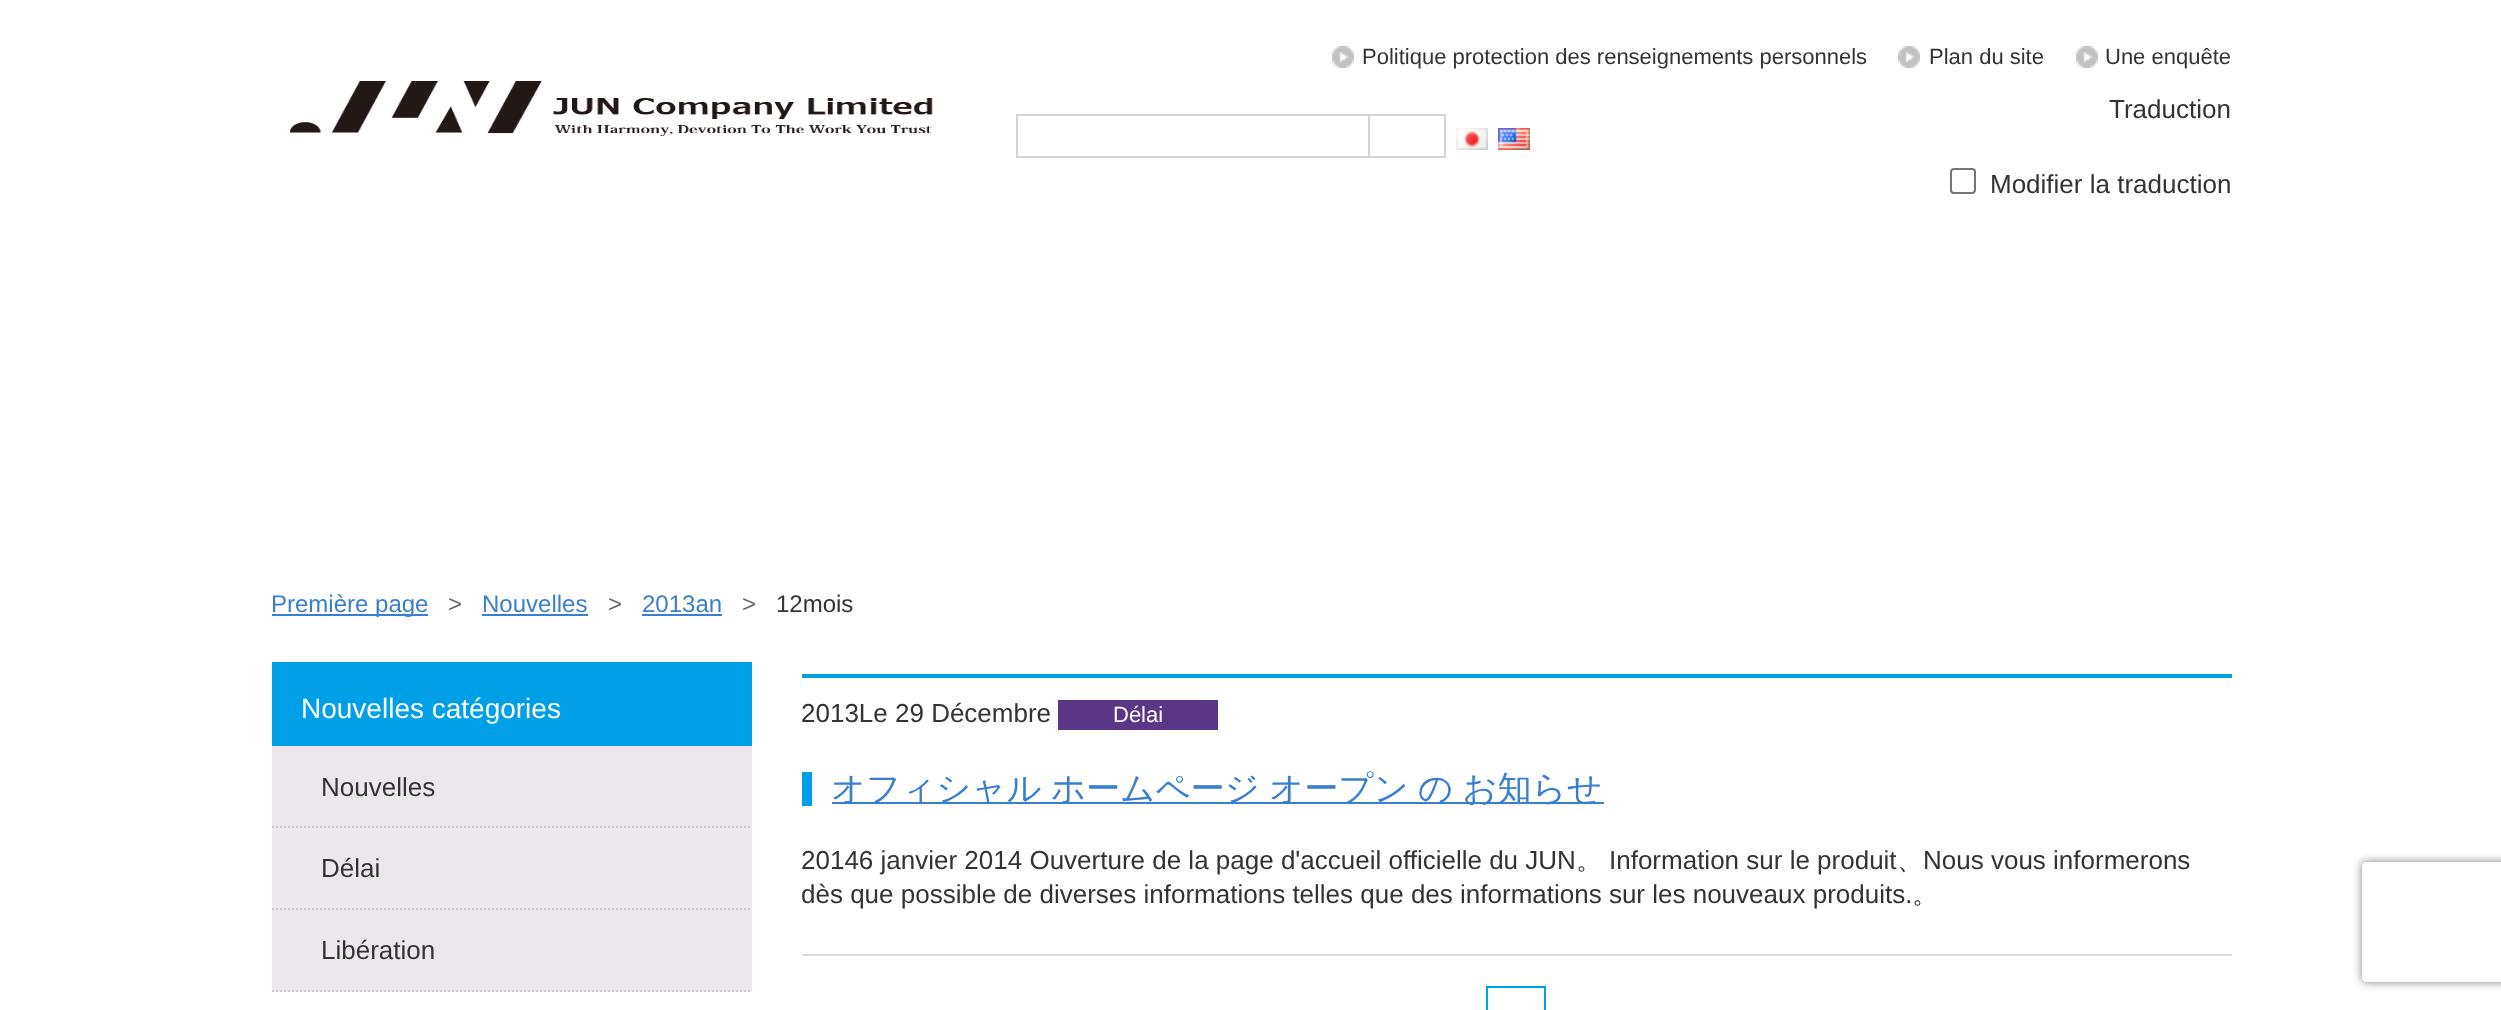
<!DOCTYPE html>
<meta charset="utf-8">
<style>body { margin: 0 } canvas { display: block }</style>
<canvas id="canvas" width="2501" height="1010"></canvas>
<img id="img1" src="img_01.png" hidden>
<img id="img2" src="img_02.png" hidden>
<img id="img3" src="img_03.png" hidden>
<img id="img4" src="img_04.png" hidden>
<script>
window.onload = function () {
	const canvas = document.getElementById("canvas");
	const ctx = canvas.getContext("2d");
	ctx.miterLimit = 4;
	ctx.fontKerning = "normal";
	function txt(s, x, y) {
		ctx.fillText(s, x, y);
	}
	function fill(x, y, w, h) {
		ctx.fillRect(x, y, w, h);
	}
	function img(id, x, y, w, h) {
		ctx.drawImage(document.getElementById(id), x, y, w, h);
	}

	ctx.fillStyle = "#FFFFFF";
	fill(0, 0, 2501, 1010);
	img("img1", 289, 81, 644, 55);
	img("img2", 1332, 46, 22, 22);
	img("img2", 1898, 46, 22, 22);
	img("img2", 2076, 46, 22, 22);
	ctx.strokeStyle = "#D4D4D4";
	ctx.lineWidth = 2;
	ctx.strokeRect(1017, 115, 352, 42);
	ctx.fillStyle = "#D4D4D4";
	fill(1370, 114, 76, 2);
	fill(1444, 114, 2, 44);
	fill(1370, 156, 76, 2);
	img("img3", 1456, 128, 32, 22);
	img("img4", 1498, 128, 32, 22);
	ctx.beginPath();
	ctx.roundRect(1951, 169, 24, 24, 3);
	ctx.strokeStyle = "#767676";
	ctx.stroke();
	ctx.fillStyle = "#3A7FCF";
	fill(272, 614, 156, 2);
	fill(482, 614, 106, 2);
	fill(642, 614, 80, 2);
	ctx.fillStyle = "#00A0E9";
	fill(272, 662, 480, 84);
	ctx.fillStyle = "#EBE7ED";
	fill(272, 746, 480, 246);
	ctx.beginPath();
	ctx.moveTo(272, 827);
	ctx.lineTo(752, 827);
	ctx.strokeStyle = "#CCCCCC";
	ctx.setLineDash([2, 2]);
	ctx.stroke();
	ctx.beginPath();
	ctx.moveTo(272, 909);
	ctx.lineTo(752, 909);
	ctx.stroke();
	ctx.beginPath();
	ctx.moveTo(272, 991);
	ctx.lineTo(752, 991);
	ctx.stroke();
	ctx.fillStyle = "#00A0E9";
	fill(802, 674, 1430, 4);
	ctx.fillStyle = "#5A3686";
	fill(1058, 700, 160, 30);
	ctx.fillStyle = "#00A0E9";
	fill(802, 772, 10, 34);
	ctx.fillStyle = "#3A7FCF";
	fill(832, 802, 772, 2);
	ctx.fillStyle = "#DDDDDD";
	fill(802, 954, 1430, 2);
	ctx.strokeStyle = "#00A0E9";
	ctx.setLineDash([]);
	ctx.strokeRect(1487, 987, 58, 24);
	ctx.save();
	ctx.beginPath();
	ctx.moveTo(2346, 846);
	ctx.lineTo(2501, 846);
	ctx.lineTo(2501, 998);
	ctx.lineTo(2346, 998);
	ctx.closePath();
	ctx.moveTo(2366, 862);
	ctx.lineTo(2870, 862);
	ctx.bezierCurveTo(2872, 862, 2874, 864, 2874, 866);
	ctx.lineTo(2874, 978);
	ctx.bezierCurveTo(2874, 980, 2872, 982, 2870, 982);
	ctx.lineTo(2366, 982);
	ctx.bezierCurveTo(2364, 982, 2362, 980, 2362, 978);
	ctx.lineTo(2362, 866);
	ctx.bezierCurveTo(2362, 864, 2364, 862, 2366, 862);
	ctx.closePath();
	ctx.clip("evenodd");
	ctx.fillStyle = "#808080";
	ctx.filter = "blur(5px)";
	ctx.beginPath();
	ctx.roundRect(2362, 862, 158, 120, 4);
	ctx.fill();
	ctx.filter = "none";
	ctx.restore();
	ctx.font = "22px Liberation Sans";
	ctx.fillStyle = "#333333";
	txt("Politique protection des renseignements personnels", 1362, 64);
	txt("Plan du site", 1929, 64);
	txt("Une enquête", 2105, 64);
	ctx.font = "26px Liberation Sans";
	txt("Traduction", 2109, 118);
	txt("Modifier la traduction", 1990, 193);
	ctx.font = "24px Liberation Sans";
	ctx.fillStyle = "#3A7FCF";
	txt("Première page", 271, 612);
	ctx.letterSpacing = "20px";
	ctx.fillStyle = "#666666";
	txt(">", 448, 612);
	ctx.letterSpacing = "0px";
	ctx.fillStyle = "#3A7FCF";
	txt("Nouvelles", 482, 612);
	ctx.letterSpacing = "20px";
	ctx.fillStyle = "#666666";
	txt(">", 608, 612);
	ctx.letterSpacing = "0px";
	ctx.fillStyle = "#3A7FCF";
	txt("2013an", 642, 612);
	ctx.letterSpacing = "20px";
	ctx.fillStyle = "#666666";
	txt(">", 742, 612);
	ctx.letterSpacing = "0px";
	ctx.fillStyle = "#333333";
	txt("12mois", 776, 612);
	ctx.font = "28px Liberation Sans";
	ctx.fillStyle = "#FFFFFF";
	txt("Nouvelles catégories", 301, 718);
	ctx.font = "26px Liberation Sans";
	ctx.fillStyle = "#333333";
	txt("Nouvelles", 321, 796);
	txt("Délai", 321, 877);
	txt("Libération", 321, 959);
	txt("2013Le 29 Décembre", 801, 722);
	ctx.font = "22px Liberation Sans";
	ctx.fillStyle = "#FFFFFF";
	txt("Délai", 1113, 722);
	ctx.wordSpacing = "-1px";
	ctx.font = "500 34.3px WenQuanYi Zen Hei";
	ctx.fillStyle = "#3A7FCF";
	txt("オフィシャル ホームページ オープン の お知らせ", 831, 800);
	ctx.wordSpacing = "0px";
	ctx.font = "26px Liberation Sans";
	ctx.fillStyle = "#333333";
	txt("20146 janvier 2014 Ouverture de la page d'accueil officielle du JUN", 801, 869);
	ctx.font = "500 26px WenQuanYi Zen Hei";
	txt("。", 1576, 869);
	ctx.font = "26px Liberation Sans";
	txt("Information sur le produit", 1609, 869);
	ctx.font = "500 26px WenQuanYi Zen Hei";
	txt("、", 1897, 869);
	ctx.font = "26px Liberation Sans";
	txt("Nous vous informerons", 1923, 869);
	txt("dès que possible de diverses informations telles que des informations sur les nouveaux produits.", 801, 903);
	ctx.font = "500 26px WenQuanYi Zen Hei";
	txt("。", 1912, 903);
};
</script>
